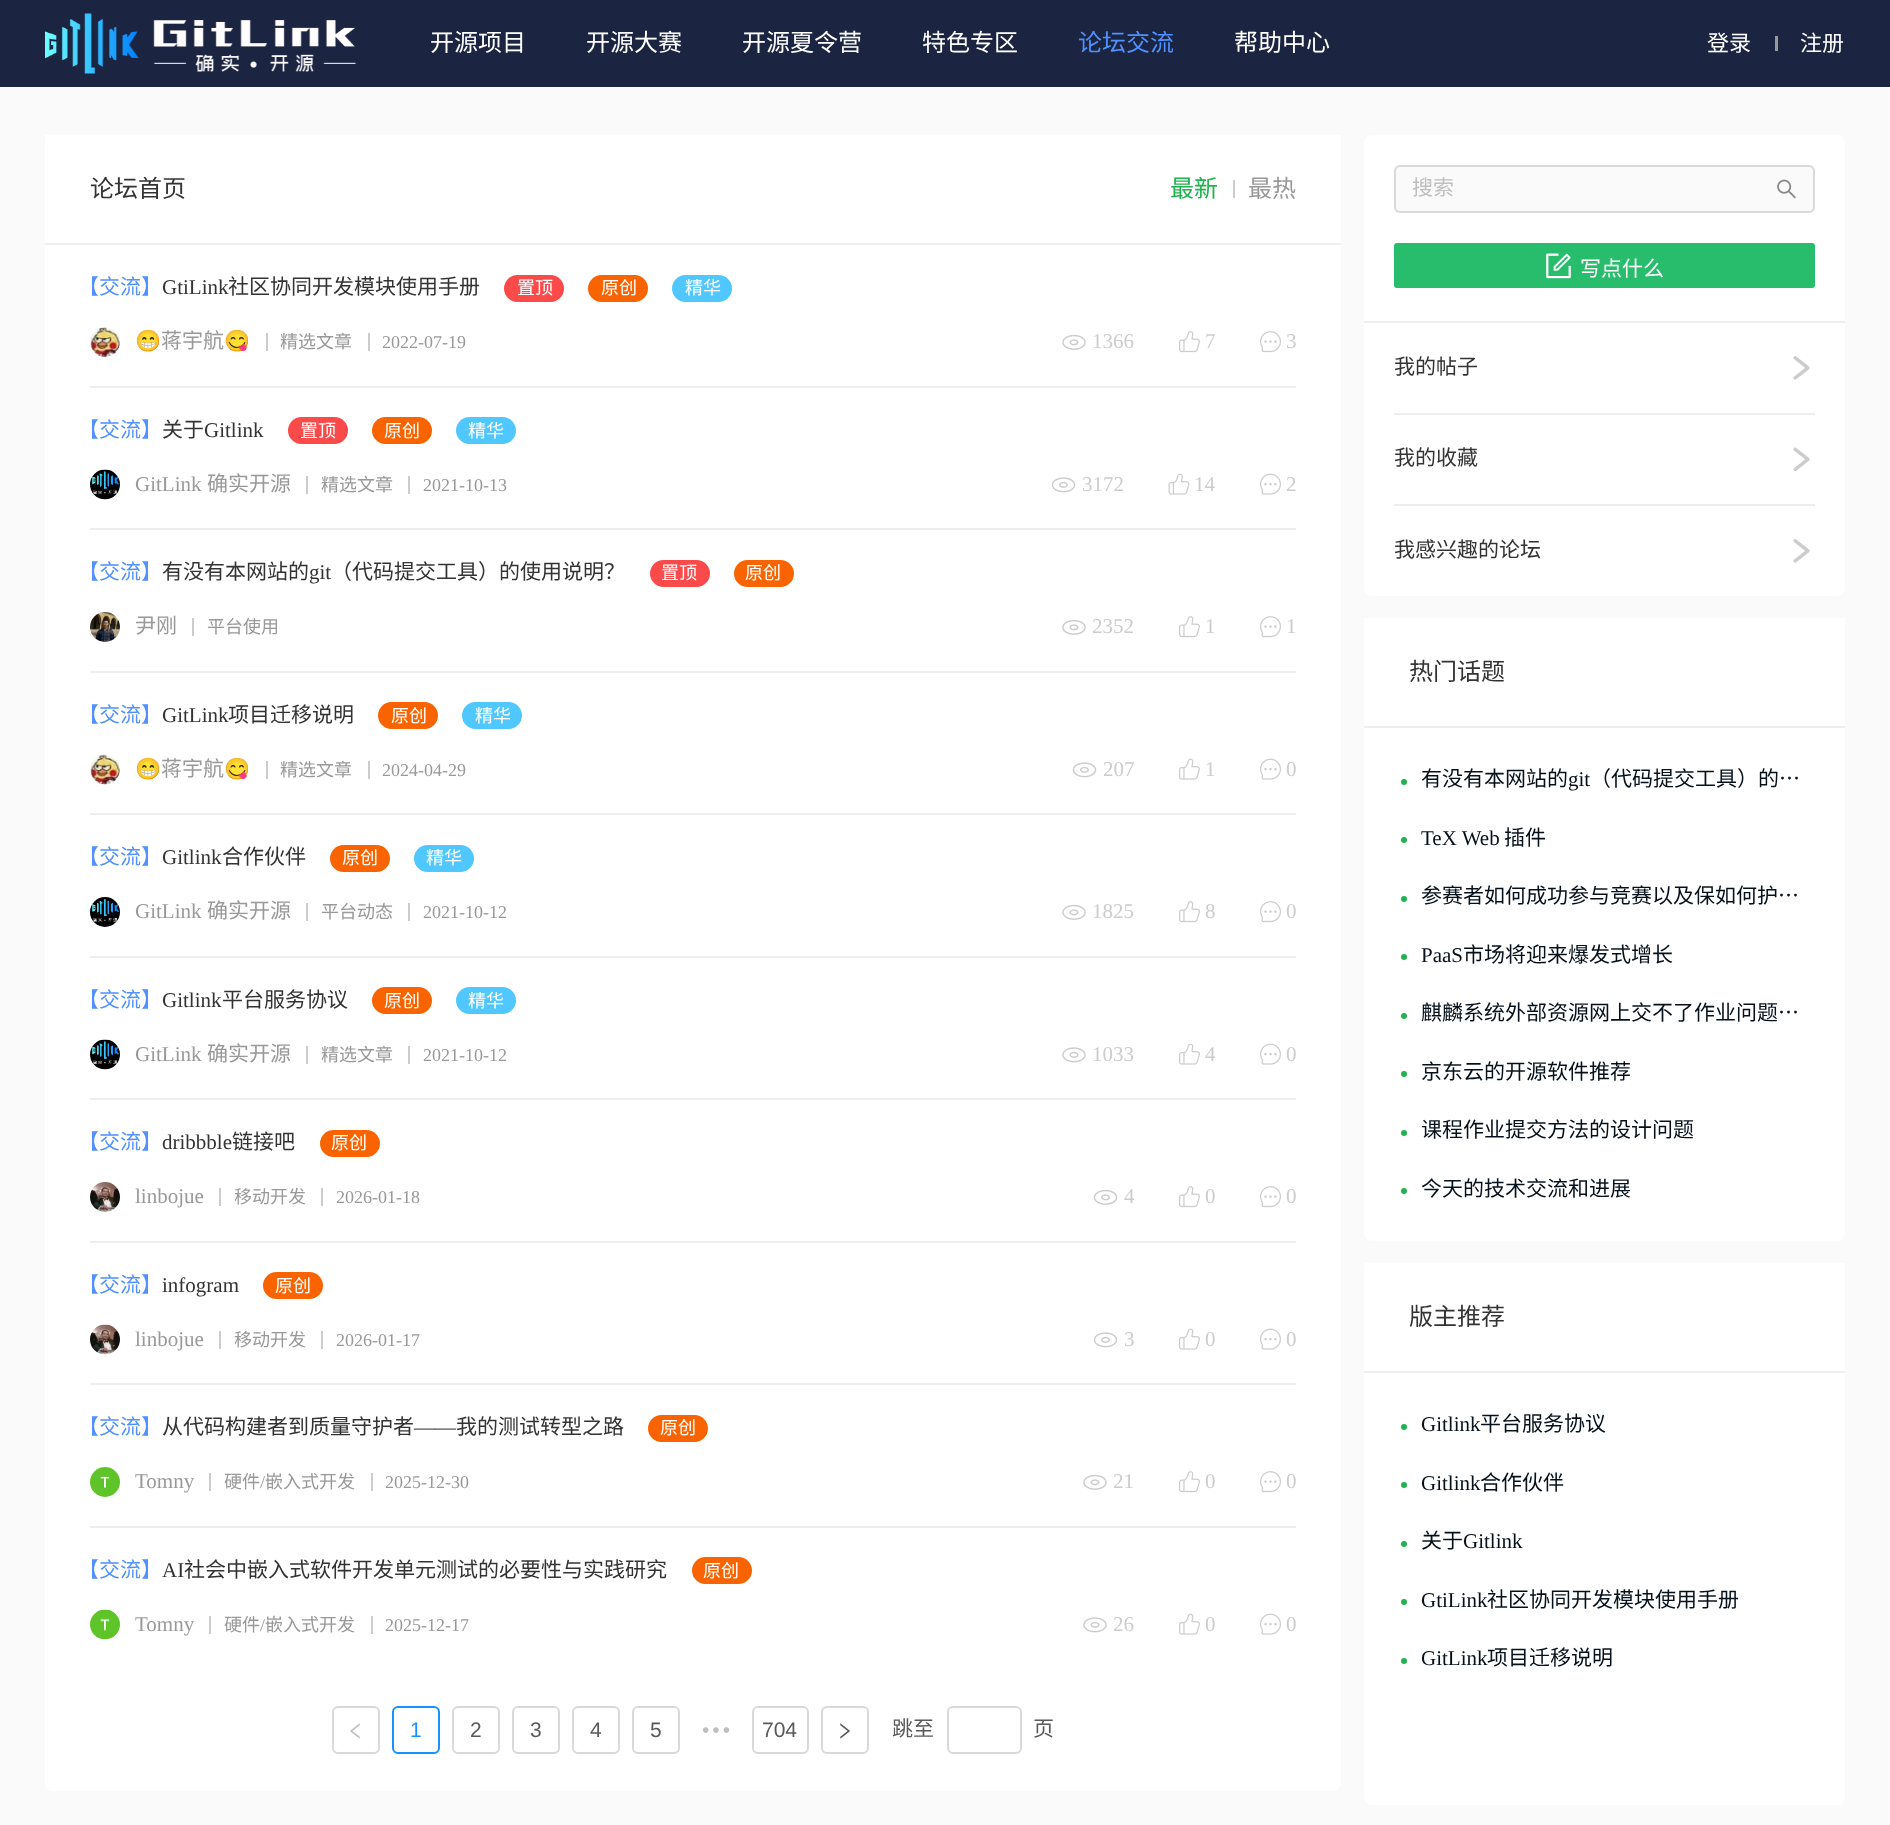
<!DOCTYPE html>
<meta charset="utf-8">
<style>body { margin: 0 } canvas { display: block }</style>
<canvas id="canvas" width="1890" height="1825"></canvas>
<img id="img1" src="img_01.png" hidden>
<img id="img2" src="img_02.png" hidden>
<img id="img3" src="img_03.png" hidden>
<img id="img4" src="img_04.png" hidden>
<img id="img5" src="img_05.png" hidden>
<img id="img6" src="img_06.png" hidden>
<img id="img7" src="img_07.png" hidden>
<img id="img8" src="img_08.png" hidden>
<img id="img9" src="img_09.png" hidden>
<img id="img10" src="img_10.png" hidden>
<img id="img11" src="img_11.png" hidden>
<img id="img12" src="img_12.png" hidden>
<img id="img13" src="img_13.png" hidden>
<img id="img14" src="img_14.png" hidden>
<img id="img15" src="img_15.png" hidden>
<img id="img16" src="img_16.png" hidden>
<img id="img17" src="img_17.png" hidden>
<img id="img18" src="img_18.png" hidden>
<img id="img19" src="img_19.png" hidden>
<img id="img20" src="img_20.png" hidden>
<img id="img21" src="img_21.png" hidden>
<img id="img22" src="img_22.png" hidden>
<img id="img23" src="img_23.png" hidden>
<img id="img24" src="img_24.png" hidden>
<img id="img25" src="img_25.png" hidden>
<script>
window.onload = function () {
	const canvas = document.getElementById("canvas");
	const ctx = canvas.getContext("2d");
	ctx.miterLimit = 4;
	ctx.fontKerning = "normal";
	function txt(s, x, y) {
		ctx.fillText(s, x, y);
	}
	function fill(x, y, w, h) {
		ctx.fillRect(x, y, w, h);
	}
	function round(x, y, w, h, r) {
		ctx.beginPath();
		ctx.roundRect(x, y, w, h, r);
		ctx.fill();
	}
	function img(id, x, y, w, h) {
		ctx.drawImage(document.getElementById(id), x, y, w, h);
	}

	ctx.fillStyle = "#FAFAFA";
	fill(0, 0, 1890, 1825);
	ctx.fillStyle = "#1B2440";
	fill(0, 0, 1890, 87);
	img("img1", 45, 13, 311, 61);
	ctx.fillStyle = "#999999";
	fill(1775, 36, 3, 15);
	ctx.fillStyle = "#FFFFFF";
	round(45, 135, 1296, 1656, 8);
	fill(45, 135, 1296, 5);
	ctx.fillStyle = "#EEEEEE";
	fill(45, 243, 1296, 2);
	ctx.fillStyle = "#CCCCCC";
	fill(1233, 180, 2, 18);
	ctx.fillStyle = "#EEEEEE";
	fill(90, 386, 1206, 2);
	ctx.fillStyle = "#FA4A4A";
	round(504, 275, 60, 27, 13.5);
	ctx.fillStyle = "#FA6400";
	round(588, 275, 60, 27, 13.5);
	ctx.fillStyle = "#50C7FF";
	round(672, 275, 60, 27, 13.5);
	img("img2", 90, 327, 30, 30);
	ctx.fillStyle = "#CCCCCC";
	fill(266, 333, 2, 18);
	fill(368, 333, 2, 18);
	img("img3", 1062, 334, 24, 16);
	img("img4", 1179, 331, 21, 22);
	img("img5", 1260, 331, 21, 22);
	ctx.fillStyle = "#EEEEEE";
	fill(90, 528, 1206, 2);
	ctx.fillStyle = "#FA4A4A";
	round(288, 417, 60, 27, 13.5);
	ctx.fillStyle = "#FA6400";
	round(372, 417, 60, 27, 13.5);
	ctx.fillStyle = "#50C7FF";
	round(456, 417, 60, 27, 13.5);
	img("img6", 90, 469, 30, 31);
	ctx.fillStyle = "#CCCCCC";
	fill(306, 476, 2, 18);
	fill(408, 476, 2, 18);
	img("img7", 1051, 477, 25, 16);
	img("img8", 1168, 473, 22, 22);
	img("img9", 1260, 473, 21, 22);
	ctx.fillStyle = "#EEEEEE";
	fill(90, 671, 1206, 2);
	ctx.fillStyle = "#FA4A4A";
	round(650, 560, 60, 27, 13.5);
	ctx.fillStyle = "#FA6400";
	round(734, 560, 60, 27, 13.5);
	img("img10", 90, 612, 30, 30);
	ctx.fillStyle = "#CCCCCC";
	fill(192, 618, 2, 18);
	img("img3", 1062, 619, 24, 16);
	img("img4", 1179, 616, 21, 22);
	img("img5", 1260, 616, 21, 22);
	ctx.fillStyle = "#EEEEEE";
	fill(90, 813, 1206, 2);
	ctx.fillStyle = "#FA6400";
	round(378, 702, 60, 27, 13.5);
	ctx.fillStyle = "#50C7FF";
	round(462, 702, 60, 27, 13.5);
	img("img11", 90, 754, 30, 31);
	ctx.fillStyle = "#CCCCCC";
	fill(266, 761, 2, 18);
	fill(368, 761, 2, 18);
	img("img7", 1072, 762, 25, 16);
	img("img12", 1179, 758, 21, 22);
	img("img9", 1260, 758, 21, 22);
	ctx.fillStyle = "#EEEEEE";
	fill(90, 956, 1206, 2);
	ctx.fillStyle = "#FA6400";
	round(330, 845, 60, 27, 13.5);
	ctx.fillStyle = "#50C7FF";
	round(414, 845, 60, 27, 13.5);
	img("img13", 90, 897, 30, 30);
	ctx.fillStyle = "#CCCCCC";
	fill(306, 903, 2, 18);
	fill(408, 903, 2, 18);
	img("img3", 1062, 904, 24, 16);
	img("img4", 1179, 901, 21, 22);
	img("img5", 1260, 901, 21, 22);
	ctx.fillStyle = "#EEEEEE";
	fill(90, 1098, 1206, 2);
	ctx.fillStyle = "#FA6400";
	round(372, 987, 60, 27, 13.5);
	ctx.fillStyle = "#50C7FF";
	round(456, 987, 60, 27, 13.5);
	img("img6", 90, 1039, 30, 31);
	ctx.fillStyle = "#CCCCCC";
	fill(306, 1046, 2, 18);
	fill(408, 1046, 2, 18);
	img("img14", 1062, 1047, 24, 16);
	img("img12", 1179, 1043, 21, 22);
	img("img9", 1260, 1043, 21, 22);
	ctx.fillStyle = "#EEEEEE";
	fill(90, 1241, 1206, 2);
	ctx.fillStyle = "#FA6400";
	round(320, 1130, 60, 27, 13.5);
	img("img15", 90, 1182, 30, 30);
	ctx.fillStyle = "#CCCCCC";
	fill(219, 1188, 2, 18);
	fill(321, 1188, 2, 18);
	img("img16", 1093, 1189, 25, 16);
	img("img4", 1179, 1186, 21, 22);
	img("img5", 1260, 1186, 21, 22);
	ctx.fillStyle = "#EEEEEE";
	fill(90, 1383, 1206, 2);
	ctx.fillStyle = "#FA6400";
	round(263, 1272, 60, 27, 13.5);
	img("img17", 90, 1324, 30, 31);
	ctx.fillStyle = "#CCCCCC";
	fill(219, 1331, 2, 18);
	fill(321, 1331, 2, 18);
	img("img7", 1093, 1332, 25, 16);
	img("img12", 1179, 1328, 21, 22);
	img("img9", 1260, 1328, 21, 22);
	ctx.fillStyle = "#EEEEEE";
	fill(90, 1526, 1206, 2);
	ctx.fillStyle = "#FA6400";
	round(648, 1415, 60, 27, 13.5);
	img("img18", 90, 1467, 30, 30);
	ctx.fillStyle = "#CCCCCC";
	fill(209, 1473, 2, 18);
	fill(371, 1473, 2, 18);
	img("img3", 1083, 1474, 24, 16);
	img("img4", 1179, 1471, 21, 22);
	img("img5", 1260, 1471, 21, 22);
	ctx.fillStyle = "#FA6400";
	round(692, 1557, 60, 27, 13.5);
	img("img19", 90, 1609, 30, 31);
	ctx.fillStyle = "#CCCCCC";
	fill(209, 1616, 2, 18);
	fill(371, 1616, 2, 18);
	img("img14", 1083, 1617, 24, 16);
	img("img12", 1179, 1613, 21, 22);
	img("img9", 1260, 1613, 21, 22);
	ctx.beginPath();
	ctx.roundRect(333, 1707, 46, 46, 5);
	ctx.strokeStyle = "#D9D9D9";
	ctx.lineWidth = 2;
	ctx.stroke();
	img("img20", 350, 1723, 10, 16);
	ctx.beginPath();
	ctx.roundRect(393, 1707, 46, 46, 5);
	ctx.strokeStyle = "#1890FF";
	ctx.stroke();
	ctx.beginPath();
	ctx.roundRect(453, 1707, 46, 46, 5);
	ctx.strokeStyle = "#D9D9D9";
	ctx.stroke();
	ctx.beginPath();
	ctx.roundRect(513, 1707, 46, 46, 5);
	ctx.stroke();
	ctx.beginPath();
	ctx.roundRect(573, 1707, 46, 46, 5);
	ctx.stroke();
	ctx.beginPath();
	ctx.roundRect(633, 1707, 46, 46, 5);
	ctx.stroke();
	ctx.beginPath();
	ctx.roundRect(753, 1707, 55, 46, 5);
	ctx.stroke();
	ctx.beginPath();
	ctx.roundRect(822, 1707, 46, 46, 5);
	ctx.stroke();
	img("img21", 840, 1723, 10, 16);
	ctx.beginPath();
	ctx.roundRect(948, 1707, 73, 46, 5);
	ctx.stroke();
	ctx.fillStyle = "#FFFFFF";
	round(1364, 135, 481, 461, 8);
	ctx.fillStyle = "#FAFAFA";
	ctx.beginPath();
	ctx.roundRect(1395, 166, 419, 46, 5);
	ctx.fill();
	ctx.stroke();
	img("img22", 1777, 179, 19, 20);
	ctx.fillStyle = "#28BD6C";
	round(1394, 243, 421, 45, 3);
	img("img23", 1546, 253, 25, 26);
	ctx.fillStyle = "#EEEEEE";
	fill(1364, 321, 481, 2);
	fill(1394, 413, 421, 2);
	img("img24", 1793, 356, 17, 24);
	fill(1394, 504, 421, 2);
	img("img25", 1793, 447, 17, 25);
	img("img24", 1793, 539, 17, 24);
	ctx.fillStyle = "#FFFFFF";
	round(1364, 618, 481, 623, 8);
	fill(1364, 618, 481, 5);
	ctx.fillStyle = "#EEEEEE";
	fill(1364, 726, 481, 2);
	ctx.fillStyle = "#21B350";
	ctx.beginPath();
	ctx.arc(1404, 782, 3, 0, Math.PI * 2);
	ctx.fill();
	ctx.beginPath();
	ctx.arc(1404, 840, 3, 0, Math.PI * 2);
	ctx.fill();
	ctx.beginPath();
	ctx.arc(1404, 899, 3, 0, Math.PI * 2);
	ctx.fill();
	ctx.beginPath();
	ctx.arc(1404, 957, 3, 0, Math.PI * 2);
	ctx.fill();
	ctx.beginPath();
	ctx.arc(1404, 1016, 3, 0, Math.PI * 2);
	ctx.fill();
	ctx.beginPath();
	ctx.arc(1404, 1074, 3, 0, Math.PI * 2);
	ctx.fill();
	ctx.beginPath();
	ctx.arc(1404, 1133, 3, 0, Math.PI * 2);
	ctx.fill();
	ctx.beginPath();
	ctx.arc(1404, 1191, 3, 0, Math.PI * 2);
	ctx.fill();
	ctx.fillStyle = "#FFFFFF";
	round(1364, 1263, 481, 542, 8);
	fill(1364, 1263, 481, 5);
	ctx.fillStyle = "#EEEEEE";
	fill(1364, 1371, 481, 2);
	ctx.fillStyle = "#21B350";
	ctx.beginPath();
	ctx.arc(1404, 1427, 3, 0, Math.PI * 2);
	ctx.fill();
	ctx.beginPath();
	ctx.arc(1404, 1485, 3, 0, Math.PI * 2);
	ctx.fill();
	ctx.beginPath();
	ctx.arc(1404, 1544, 3, 0, Math.PI * 2);
	ctx.fill();
	ctx.beginPath();
	ctx.arc(1404, 1602, 3, 0, Math.PI * 2);
	ctx.fill();
	ctx.beginPath();
	ctx.arc(1404, 1661, 3, 0, Math.PI * 2);
	ctx.fill();
	ctx.font = "24px Noto Sans CJK SC";
	ctx.fillStyle = "#FFFFFF";
	txt("开源项目", 430, 51);
	txt("开源大赛", 586, 51);
	txt("开源夏令营", 742, 51);
	txt("特色专区", 922, 51);
	ctx.fillStyle = "#5091FF";
	txt("论坛交流", 1078, 51);
	ctx.fillStyle = "#FFFFFF";
	txt("帮助中心", 1234, 51);
	ctx.font = "22px Noto Sans CJK SC";
	txt("登录", 1707, 51);
	txt("注册", 1800, 51);
	ctx.font = "24px Noto Sans CJK SC";
	ctx.fillStyle = "#333333";
	txt("论坛首页", 90, 197);
	ctx.fillStyle = "#21B350";
	txt("最新", 1170, 197);
	ctx.fillStyle = "#999999";
	txt("最热", 1248, 197);
	ctx.font = "21px Noto Sans CJK SC";
	ctx.fillStyle = "#5091FF";
	txt("【交流】", 78, 294);
	ctx.font = "21px Liberation Serif";
	ctx.fillStyle = "#333333";
	txt("GtiLink", 162, 294);
	ctx.font = "21px Noto Sans CJK SC";
	txt("社区协同开发模块使用手册", 228, 294);
	ctx.font = "18px Noto Sans CJK SC";
	ctx.fillStyle = "#FFFFFF";
	txt("置顶", 517, 294);
	txt("原创", 601, 294);
	txt("精华", 685, 294);
	ctx.font = "21px Noto Color Emoji";
	ctx.fillStyle = "#999999";
	txt("😁", 135, 348);
	ctx.font = "21px Noto Sans CJK SC";
	txt("蒋宇航", 161, 348);
	ctx.font = "21px Noto Color Emoji";
	txt("😋", 224, 348);
	ctx.font = "18px Noto Sans CJK SC";
	txt("精选文章", 280, 348);
	ctx.font = "18px Liberation Serif";
	txt("2022-07-19", 382, 348);
	ctx.font = "21px Liberation Serif";
	ctx.fillStyle = "#CCCCCC";
	txt("1366", 1092, 348);
	txt("7", 1205, 348);
	txt("3", 1286, 348);
	ctx.font = "21px Noto Sans CJK SC";
	ctx.fillStyle = "#5091FF";
	txt("【交流】", 78, 437);
	ctx.fillStyle = "#333333";
	txt("关于", 162, 437);
	ctx.font = "21px Liberation Serif";
	txt("Gitlink", 204, 437);
	ctx.font = "18px Noto Sans CJK SC";
	ctx.fillStyle = "#FFFFFF";
	txt("置顶", 300, 437);
	txt("原创", 384, 437);
	txt("精华", 468, 437);
	ctx.font = "21px Liberation Serif";
	ctx.fillStyle = "#999999";
	txt("GitLink", 135, 491);
	ctx.font = "21px Noto Sans CJK SC";
	txt("确实开源", 207, 491);
	ctx.font = "18px Noto Sans CJK SC";
	txt("精选文章", 321, 491);
	ctx.font = "18px Liberation Serif";
	txt("2021-10-13", 423, 491);
	ctx.font = "21px Liberation Serif";
	ctx.fillStyle = "#CCCCCC";
	txt("3172", 1082, 491);
	txt("14", 1194, 491);
	txt("2", 1286, 491);
	ctx.font = "21px Noto Sans CJK SC";
	ctx.fillStyle = "#5091FF";
	txt("【交流】", 78, 579);
	ctx.fillStyle = "#333333";
	txt("有没有本网站的", 162, 579);
	ctx.font = "21px Liberation Serif";
	txt("git", 309, 579);
	ctx.font = "21px Noto Sans CJK SC";
	txt("（代码提交工具）的使用说明？", 331, 579);
	ctx.font = "18px Noto Sans CJK SC";
	ctx.fillStyle = "#FFFFFF";
	txt("置顶", 661, 579);
	txt("原创", 745, 579);
	ctx.font = "21px Noto Sans CJK SC";
	ctx.fillStyle = "#999999";
	txt("尹刚", 135, 633);
	ctx.font = "18px Noto Sans CJK SC";
	txt("平台使用", 207, 633);
	ctx.font = "21px Liberation Serif";
	ctx.fillStyle = "#CCCCCC";
	txt("2352", 1092, 633);
	txt("1", 1205, 633);
	txt("1", 1286, 633);
	ctx.font = "21px Noto Sans CJK SC";
	ctx.fillStyle = "#5091FF";
	txt("【交流】", 78, 722);
	ctx.font = "21px Liberation Serif";
	ctx.fillStyle = "#333333";
	txt("GitLink", 162, 722);
	ctx.font = "21px Noto Sans CJK SC";
	txt("项目迁移说明", 228, 722);
	ctx.font = "18px Noto Sans CJK SC";
	ctx.fillStyle = "#FFFFFF";
	txt("原创", 391, 722);
	txt("精华", 475, 722);
	ctx.font = "21px Noto Color Emoji";
	ctx.fillStyle = "#999999";
	txt("😁", 135, 776);
	ctx.font = "21px Noto Sans CJK SC";
	txt("蒋宇航", 161, 776);
	ctx.font = "21px Noto Color Emoji";
	txt("😋", 224, 776);
	ctx.font = "18px Noto Sans CJK SC";
	txt("精选文章", 280, 776);
	ctx.font = "18px Liberation Serif";
	txt("2024-04-29", 382, 776);
	ctx.font = "21px Liberation Serif";
	ctx.fillStyle = "#CCCCCC";
	txt("207", 1103, 776);
	txt("1", 1205, 776);
	txt("0", 1286, 776);
	ctx.font = "21px Noto Sans CJK SC";
	ctx.fillStyle = "#5091FF";
	txt("【交流】", 78, 864);
	ctx.font = "21px Liberation Serif";
	ctx.fillStyle = "#333333";
	txt("Gitlink", 162, 864);
	ctx.font = "21px Noto Sans CJK SC";
	txt("合作伙伴", 222, 864);
	ctx.font = "18px Noto Sans CJK SC";
	ctx.fillStyle = "#FFFFFF";
	txt("原创", 342, 864);
	txt("精华", 426, 864);
	ctx.font = "21px Liberation Serif";
	ctx.fillStyle = "#999999";
	txt("GitLink", 135, 918);
	ctx.font = "21px Noto Sans CJK SC";
	txt("确实开源", 207, 918);
	ctx.font = "18px Noto Sans CJK SC";
	txt("平台动态", 321, 918);
	ctx.font = "18px Liberation Serif";
	txt("2021-10-12", 423, 918);
	ctx.font = "21px Liberation Serif";
	ctx.fillStyle = "#CCCCCC";
	txt("1825", 1092, 918);
	txt("8", 1205, 918);
	txt("0", 1286, 918);
	ctx.font = "21px Noto Sans CJK SC";
	ctx.fillStyle = "#5091FF";
	txt("【交流】", 78, 1007);
	ctx.font = "21px Liberation Serif";
	ctx.fillStyle = "#333333";
	txt("Gitlink", 162, 1007);
	ctx.font = "21px Noto Sans CJK SC";
	txt("平台服务协议", 222, 1007);
	ctx.font = "18px Noto Sans CJK SC";
	ctx.fillStyle = "#FFFFFF";
	txt("原创", 384, 1007);
	txt("精华", 468, 1007);
	ctx.font = "21px Liberation Serif";
	ctx.fillStyle = "#999999";
	txt("GitLink", 135, 1061);
	ctx.font = "21px Noto Sans CJK SC";
	txt("确实开源", 207, 1061);
	ctx.font = "18px Noto Sans CJK SC";
	txt("精选文章", 321, 1061);
	ctx.font = "18px Liberation Serif";
	txt("2021-10-12", 423, 1061);
	ctx.font = "21px Liberation Serif";
	ctx.fillStyle = "#CCCCCC";
	txt("1033", 1092, 1061);
	txt("4", 1205, 1061);
	txt("0", 1286, 1061);
	ctx.font = "21px Noto Sans CJK SC";
	ctx.fillStyle = "#5091FF";
	txt("【交流】", 78, 1149);
	ctx.font = "21px Liberation Serif";
	ctx.fillStyle = "#333333";
	txt("dribbble", 162, 1149);
	ctx.font = "21px Noto Sans CJK SC";
	txt("链接吧", 232, 1149);
	ctx.font = "18px Noto Sans CJK SC";
	ctx.fillStyle = "#FFFFFF";
	txt("原创", 331, 1149);
	ctx.font = "21px Liberation Serif";
	ctx.fillStyle = "#999999";
	txt("linbojue", 135, 1203);
	ctx.font = "18px Noto Sans CJK SC";
	txt("移动开发", 234, 1203);
	ctx.font = "18px Liberation Serif";
	txt("2026-01-18", 336, 1203);
	ctx.font = "21px Liberation Serif";
	ctx.fillStyle = "#CCCCCC";
	txt("4", 1124, 1203);
	txt("0", 1205, 1203);
	txt("0", 1286, 1203);
	ctx.font = "21px Noto Sans CJK SC";
	ctx.fillStyle = "#5091FF";
	txt("【交流】", 78, 1292);
	ctx.font = "21px Liberation Serif";
	ctx.fillStyle = "#333333";
	txt("infogram", 162, 1292);
	ctx.font = "18px Noto Sans CJK SC";
	ctx.fillStyle = "#FFFFFF";
	txt("原创", 275, 1292);
	ctx.font = "21px Liberation Serif";
	ctx.fillStyle = "#999999";
	txt("linbojue", 135, 1346);
	ctx.font = "18px Noto Sans CJK SC";
	txt("移动开发", 234, 1346);
	ctx.font = "18px Liberation Serif";
	txt("2026-01-17", 336, 1346);
	ctx.font = "21px Liberation Serif";
	ctx.fillStyle = "#CCCCCC";
	txt("3", 1124, 1346);
	txt("0", 1205, 1346);
	txt("0", 1286, 1346);
	ctx.font = "21px Noto Sans CJK SC";
	ctx.fillStyle = "#5091FF";
	txt("【交流】", 78, 1434);
	ctx.fillStyle = "#333333";
	txt("从代码构建者到质量守护者", 162, 1434);
	ctx.font = "21px Liberation Serif";
	txt("——", 414, 1434);
	ctx.font = "21px Noto Sans CJK SC";
	txt("我的测试转型之路", 456, 1434);
	ctx.font = "18px Noto Sans CJK SC";
	ctx.fillStyle = "#FFFFFF";
	txt("原创", 660, 1434);
	ctx.font = "21px Liberation Serif";
	ctx.fillStyle = "#999999";
	txt("Tomny", 135, 1488);
	ctx.font = "18px Noto Sans CJK SC";
	txt("硬件", 224, 1488);
	ctx.font = "18px Liberation Serif";
	txt("/", 260, 1488);
	ctx.font = "18px Noto Sans CJK SC";
	txt("嵌入式开发", 265, 1488);
	ctx.font = "18px Liberation Serif";
	txt("2025-12-30", 385, 1488);
	ctx.font = "21px Liberation Serif";
	ctx.fillStyle = "#CCCCCC";
	txt("21", 1113, 1488);
	txt("0", 1205, 1488);
	txt("0", 1286, 1488);
	ctx.font = "21px Noto Sans CJK SC";
	ctx.fillStyle = "#5091FF";
	txt("【交流】", 78, 1577);
	ctx.font = "21px Liberation Serif";
	ctx.fillStyle = "#333333";
	txt("AI", 162, 1577);
	ctx.font = "21px Noto Sans CJK SC";
	txt("社会中嵌入式软件开发单元测试的必要性与实践研究", 184, 1577);
	ctx.font = "18px Noto Sans CJK SC";
	ctx.fillStyle = "#FFFFFF";
	txt("原创", 703, 1577);
	ctx.font = "21px Liberation Serif";
	ctx.fillStyle = "#999999";
	txt("Tomny", 135, 1631);
	ctx.font = "18px Noto Sans CJK SC";
	txt("硬件", 224, 1631);
	ctx.font = "18px Liberation Serif";
	txt("/", 260, 1631);
	ctx.font = "18px Noto Sans CJK SC";
	txt("嵌入式开发", 265, 1631);
	ctx.font = "18px Liberation Serif";
	txt("2025-12-17", 385, 1631);
	ctx.font = "21px Liberation Serif";
	ctx.fillStyle = "#CCCCCC";
	txt("26", 1113, 1631);
	txt("0", 1205, 1631);
	txt("0", 1286, 1631);
	ctx.font = "21px Liberation Sans";
	ctx.fillStyle = "#1890FF";
	txt("1", 410, 1737);
	ctx.fillStyle = "#595959";
	txt("2", 470, 1737);
	txt("3", 530, 1737);
	txt("4", 590, 1737);
	txt("5", 650, 1737);
	ctx.letterSpacing = "3px";
	ctx.fillStyle = "#BFBFBF";
	txt("•••", 702, 1737);
	ctx.letterSpacing = "0px";
	ctx.fillStyle = "#595959";
	txt("704", 762, 1737);
	ctx.font = "21px Noto Sans CJK SC";
	txt("跳至", 892, 1736);
	txt("页", 1033, 1736);
	ctx.fillStyle = "#BFBFBF";
	txt("搜索", 1412, 195);
	ctx.fillStyle = "#FFFFFF";
	txt("写点什么", 1580, 276);
	ctx.fillStyle = "#333333";
	txt("我的帖子", 1394, 374);
	txt("我的收藏", 1394, 465);
	txt("我感兴趣的论坛", 1394, 557);
	ctx.font = "24px Noto Sans CJK SC";
	txt("热门话题", 1409, 680);
	ctx.font = "21px Noto Sans CJK SC";
	ctx.fillStyle = "#05101A";
	txt("有没有本网站的", 1421, 786);
	ctx.font = "21px Liberation Serif";
	txt("git", 1568, 786);
	ctx.font = "21px Noto Sans CJK SC";
	txt("（代码提交工具）的…", 1590, 786);
	ctx.font = "21px Liberation Serif";
	txt("TeX Web", 1421, 845);
	ctx.font = "21px Noto Sans CJK SC";
	txt("插件", 1504, 845);
	txt("参赛者如何成功参与竞赛以及保如何护…", 1421, 903);
	ctx.font = "21px Liberation Serif";
	txt("PaaS", 1421, 962);
	ctx.font = "21px Noto Sans CJK SC";
	txt("市场将迎来爆发式增长", 1463, 962);
	txt("麒麟系统外部资源网上交不了作业问题…", 1421, 1020);
	txt("京东云的开源软件推荐", 1421, 1079);
	txt("课程作业提交方法的设计问题", 1421, 1137);
	txt("今天的技术交流和进展", 1421, 1196);
	ctx.font = "24px Noto Sans CJK SC";
	ctx.fillStyle = "#333333";
	txt("版主推荐", 1409, 1325);
	ctx.font = "21px Liberation Serif";
	ctx.fillStyle = "#05101A";
	txt("Gitlink", 1421, 1431);
	ctx.font = "21px Noto Sans CJK SC";
	txt("平台服务协议", 1480, 1431);
	ctx.font = "21px Liberation Serif";
	txt("Gitlink", 1421, 1490);
	ctx.font = "21px Noto Sans CJK SC";
	txt("合作伙伴", 1480, 1490);
	txt("关于", 1421, 1548);
	ctx.font = "21px Liberation Serif";
	txt("Gitlink", 1463, 1548);
	txt("GtiLink", 1421, 1607);
	ctx.font = "21px Noto Sans CJK SC";
	txt("社区协同开发模块使用手册", 1487, 1607);
	ctx.font = "21px Liberation Serif";
	txt("GitLink", 1421, 1665);
	ctx.font = "21px Noto Sans CJK SC";
	txt("项目迁移说明", 1487, 1665);
};
</script>
